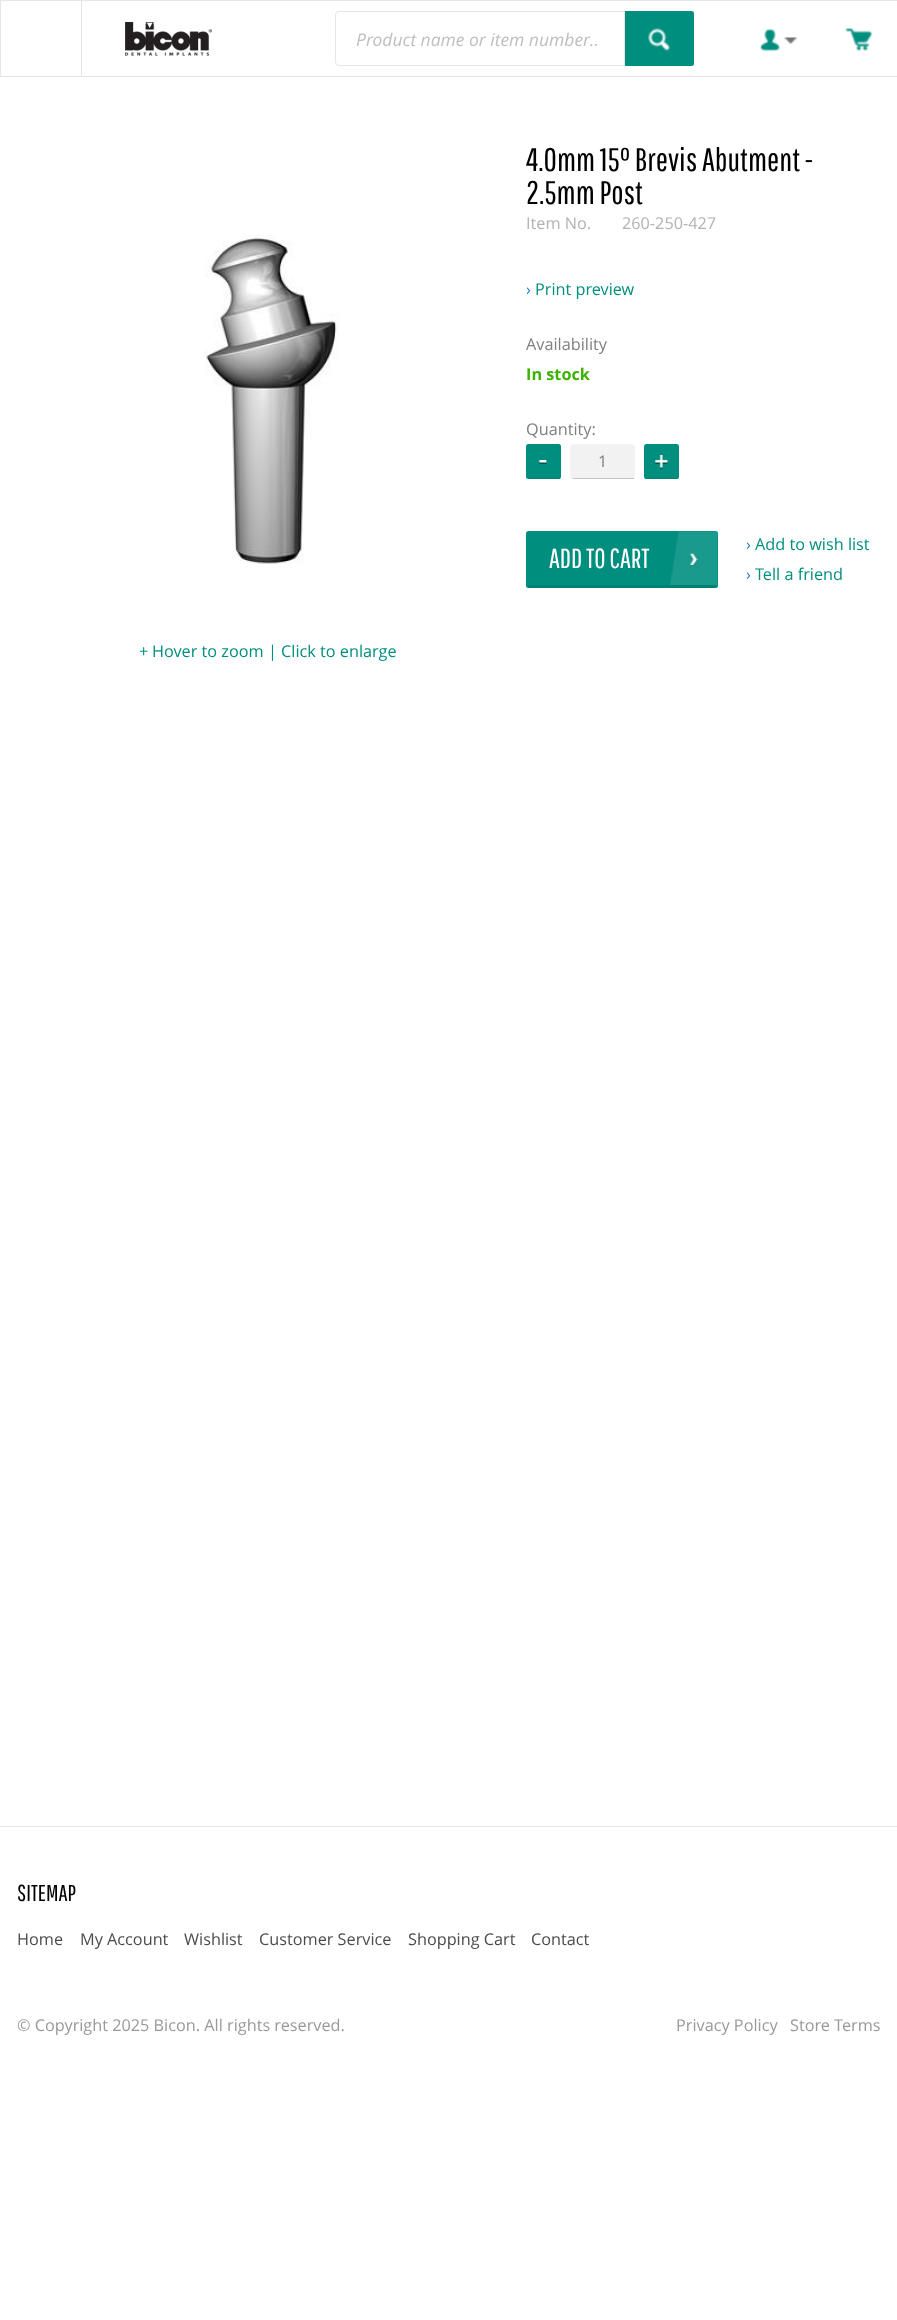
<!DOCTYPE html>
<meta charset="utf-8">
<style>body { margin: 0 } canvas { display: block }</style>
<canvas id="canvas" width="897" height="2320"></canvas>
<img id="img1" src="img_01.png" hidden>
<img id="img2" src="img_02.png" hidden>
<img id="img3" src="img_03.png" hidden>
<img id="img4" src="img_04.png" hidden>
<img id="img5" src="img_05.png" hidden>
<img id="img6" src="img_06.png" hidden>
<img id="img7" src="img_07.png" hidden>
<img id="img8" src="img_08.png" hidden>
<img id="img9" src="img_09.png" hidden>
<img id="img10" src="img_10.png" hidden>
<script>
window.onload = function () {
	const canvas = document.getElementById("canvas");
	const ctx = canvas.getContext("2d");
	ctx.miterLimit = 4;
	ctx.fontKerning = "normal";
	function txt(s, x, y) {
		ctx.fillText(s, x, y);
	}
	function fill(x, y, w, h) {
		ctx.fillRect(x, y, w, h);
	}
	function round(x, y, w, h, r) {
		ctx.beginPath();
		ctx.roundRect(x, y, w, h, r);
		ctx.fill();
	}
	function img(id, x, y, w, h) {
		ctx.drawImage(document.getElementById(id), x, y, w, h);
	}

	ctx.fillStyle = "#FFFFFF";
	fill(0, 0, 897, 2320);
	ctx.fillStyle = "#E6E6E6";
	fill(0, 0, 897, 1);
	fill(0, 76, 897, 1);
	fill(81, 1, 1, 75);
	fill(0, 1, 1, 75);
	img("img1", 125, 22, 87, 34);
	ctx.beginPath();
	ctx.roundRect(335.5, 11.5, 289, 54, [3.5, 0, 0, 3.5]);
	ctx.strokeStyle = "#E6E6E6";
	ctx.stroke();
	ctx.fillStyle = "#008F7F";
	ctx.beginPath();
	ctx.roundRect(625, 11, 69, 55, [0, 2.5, 2.5, 0]);
	ctx.fill();
	img("img2", 648, 28, 23, 23);
	img("img3", 759, 28, 22, 24);
	img("img4", 783, 37, 15, 8);
	img("img5", 845, 28, 27, 23);
	ctx.fillStyle = "#F2F2F2";
	round(570, 444, 65, 35, 4);
	ctx.fillStyle = "#C2C2C2";
	fill(573, 478, 61, 1);
	ctx.fillStyle = "#008F7F";
	round(526, 444, 35, 35, 2.5);
	ctx.fillStyle = "#018172";
	fill(528, 478, 32, 1);
	img("img6", 538, 460, 10, 4);
	ctx.fillStyle = "#008F7F";
	round(644, 444, 35, 35, 2.5);
	ctx.fillStyle = "#018172";
	fill(645, 478, 33, 1);
	img("img7", 655, 455, 13, 14);
	ctx.fillStyle = "#008F7F";
	round(526, 531, 192, 57, 2.5);
	ctx.fillStyle = "#018172";
	fill(528, 585, 188, 3);
	img("img8", 689, 553, 9, 14);
	img("img9", 670, 531, 48, 54);
	img("img10", 204, 235, 135, 329);
	ctx.fillStyle = "#E6E6E6";
	fill(0, 1826, 897, 1);
	ctx.font = "italic 17.5px Open Sans";
	ctx.fillStyle = "#BFBFBF";
	txt("Product name or item number..", 356, 46);
	ctx.font = "32.5px Pathway Gothic One";
	ctx.fillStyle = "#000000";
	txt("4.0mm 15° Brevis Abutment -", 526, 171);
	txt("2.5mm Post", 526, 204);
	ctx.font = "16.25px Open Sans";
	ctx.fillStyle = "#B2B2B2";
	txt("Item No.", 526, 229);
	txt("260-250-427", 622, 229);
	ctx.fillStyle = "#1F7BC9";
	txt("›", 526, 295);
	ctx.fillStyle = "#008F7F";
	txt("Print preview", 535, 295);
	ctx.fillStyle = "#808080";
	txt("Availability", 526, 350);
	ctx.font = "bold 16.25px Open Sans";
	ctx.fillStyle = "#3CB300";
	txt("In stock", 526, 380);
	ctx.font = "16.25px Open Sans";
	ctx.fillStyle = "#808080";
	txt("Quantity:", 526, 435);
	txt("1", 598, 467);
	ctx.font = "27.5px Pathway Gothic One";
	ctx.fillStyle = "#FFFFFF";
	txt("ADD TO CART", 549, 568);
	ctx.font = "16.25px Open Sans";
	ctx.fillStyle = "#1F7BC9";
	txt("›", 746, 550);
	ctx.fillStyle = "#008F7F";
	txt("Add to wish list", 755, 550);
	ctx.fillStyle = "#1F7BC9";
	txt("›", 746, 580);
	ctx.fillStyle = "#008F7F";
	txt("Tell a friend", 755, 580);
	txt("+", 139, 657);
	txt("Hover to zoom | Click to enlarge", 152, 657);
	ctx.font = "23px Pathway Gothic One";
	ctx.fillStyle = "#000000";
	txt("SITEMAP", 17, 1901);
	ctx.font = "16.25px Open Sans";
	ctx.fillStyle = "#4C4C4C";
	txt("Home", 17, 1945);
	txt("My Account", 80, 1945);
	txt("Wishlist", 184, 1945);
	txt("Customer Service", 259, 1945);
	txt("Shopping Cart", 408, 1945);
	txt("Contact", 531, 1945);
	ctx.fillStyle = "#999999";
	txt("© Copyright 2025 Bicon. All rights reserved.", 17, 2031);
	txt("Privacy Policy", 676, 2031);
	txt("Store Terms", 790, 2031);
};
</script>
